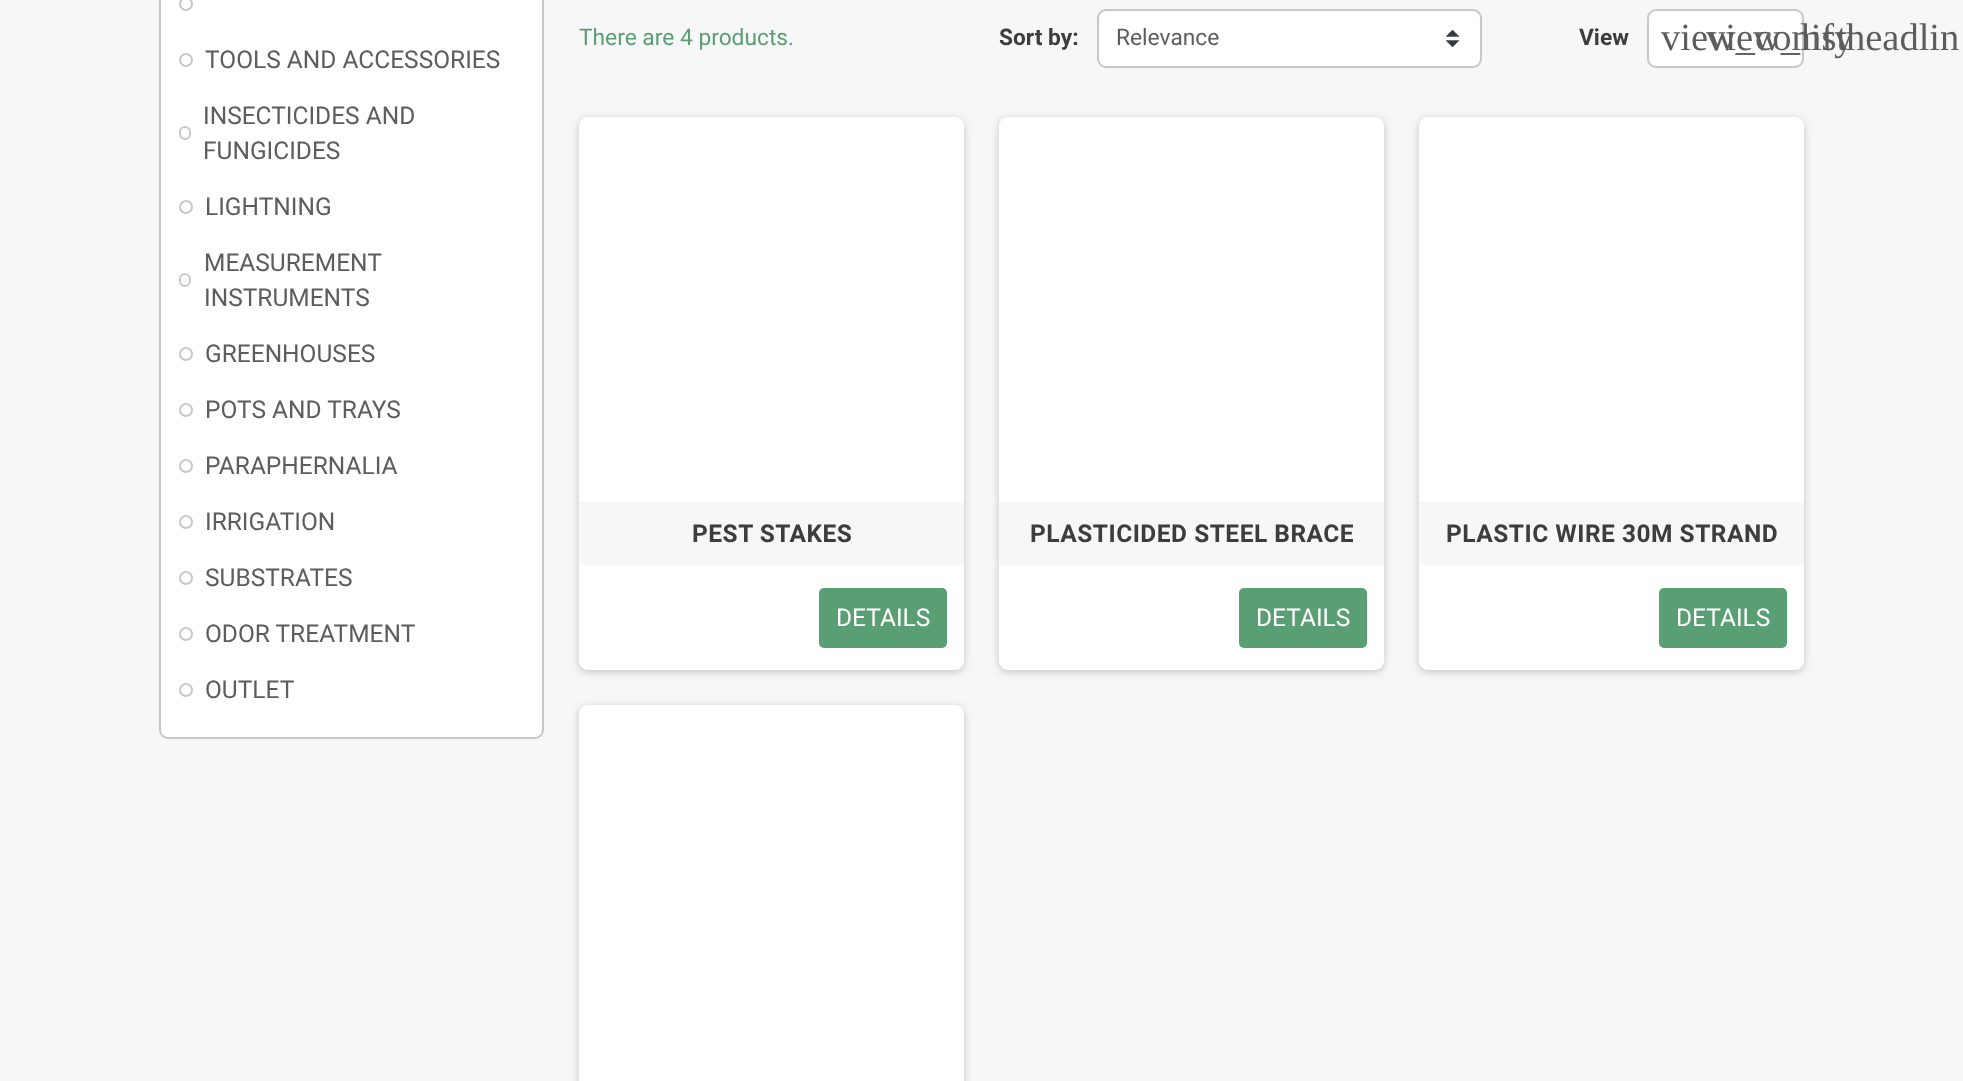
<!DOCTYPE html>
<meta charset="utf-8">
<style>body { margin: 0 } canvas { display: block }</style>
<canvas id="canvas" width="1963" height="1081"></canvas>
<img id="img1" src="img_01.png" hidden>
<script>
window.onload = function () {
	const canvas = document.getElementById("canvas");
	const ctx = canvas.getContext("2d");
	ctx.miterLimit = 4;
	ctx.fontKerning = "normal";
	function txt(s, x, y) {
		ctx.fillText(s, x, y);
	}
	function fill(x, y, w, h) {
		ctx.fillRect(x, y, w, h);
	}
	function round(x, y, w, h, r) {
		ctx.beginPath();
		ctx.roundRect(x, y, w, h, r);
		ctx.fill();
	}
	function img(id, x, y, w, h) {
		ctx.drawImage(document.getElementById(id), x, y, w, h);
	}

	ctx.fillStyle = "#F7F7F7";
	fill(0, 0, 1963, 1081);
	ctx.fillStyle = "#FFFFFF";
	ctx.beginPath();
	ctx.roundRect(160, -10, 383, 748, 8);
	ctx.fill();
	ctx.strokeStyle = "#C7C7C7";
	ctx.lineWidth = 2;
	ctx.stroke();
	ctx.beginPath();
	ctx.arc(186, 4, 6, 0, Math.PI * 2);
	ctx.stroke();
	ctx.beginPath();
	ctx.arc(186, 60, 6, 0, Math.PI * 2);
	ctx.stroke();
	ctx.beginPath();
	ctx.roundRect(180, 127, 10, 12, 5);
	ctx.stroke();
	ctx.beginPath();
	ctx.arc(186, 207, 6, 0, Math.PI * 2);
	ctx.stroke();
	ctx.beginPath();
	ctx.roundRect(180, 274, 10, 12, 5);
	ctx.stroke();
	ctx.beginPath();
	ctx.arc(186, 354, 6, 0, Math.PI * 2);
	ctx.stroke();
	ctx.beginPath();
	ctx.arc(186, 410, 6, 0, Math.PI * 2);
	ctx.stroke();
	ctx.beginPath();
	ctx.arc(186, 466, 6, 0, Math.PI * 2);
	ctx.stroke();
	ctx.beginPath();
	ctx.arc(186, 522, 6, 0, Math.PI * 2);
	ctx.stroke();
	ctx.beginPath();
	ctx.arc(186, 578, 6, 0, Math.PI * 2);
	ctx.stroke();
	ctx.beginPath();
	ctx.arc(186, 634, 6, 0, Math.PI * 2);
	ctx.stroke();
	ctx.beginPath();
	ctx.arc(186, 690, 6, 0, Math.PI * 2);
	ctx.stroke();
	round(1097, 9, 385, 59, 9);
	img("img1", 1446, 30, 14, 17);
	ctx.beginPath();
	ctx.roundRect(1098, 10, 383, 57, 8);
	ctx.stroke();
	ctx.beginPath();
	ctx.roundRect(1648, 10, 155, 57, 8);
	ctx.fill();
	ctx.stroke();
	ctx.fillStyle = "rgba(0, 0, 0, 0.2)";
	ctx.filter = "blur(4.5px)";
	ctx.beginPath();
	ctx.roundRect(579, 119, 385, 553, 9);
	ctx.fill();
	ctx.filter = "none";
	ctx.fillStyle = "#FFFFFF";
	round(579, 117, 385, 553, 9);
	ctx.fillStyle = "#F7F7F7";
	fill(579, 502, 385, 63);
	ctx.fillStyle = "#5A9E74";
	round(819, 588, 128, 60, 5);
	ctx.fillStyle = "rgba(0, 0, 0, 0.2)";
	ctx.filter = "blur(4.5px)";
	ctx.beginPath();
	ctx.roundRect(999, 119, 385, 553, 9);
	ctx.fill();
	ctx.filter = "none";
	ctx.fillStyle = "#FFFFFF";
	round(999, 117, 385, 553, 9);
	ctx.fillStyle = "#F7F7F7";
	fill(999, 502, 385, 63);
	ctx.fillStyle = "#5A9E74";
	round(1239, 588, 128, 60, 5);
	ctx.fillStyle = "rgba(0, 0, 0, 0.2)";
	ctx.filter = "blur(4.5px)";
	ctx.beginPath();
	ctx.roundRect(1419, 119, 385, 553, 9);
	ctx.fill();
	ctx.filter = "none";
	ctx.fillStyle = "#FFFFFF";
	round(1419, 117, 385, 553, 9);
	ctx.fillStyle = "#F7F7F7";
	fill(1419, 502, 385, 63);
	ctx.fillStyle = "#5A9E74";
	round(1659, 588, 128, 60, 5);
	ctx.fillStyle = "rgba(0, 0, 0, 0.2)";
	ctx.filter = "blur(4.5px)";
	ctx.beginPath();
	ctx.roundRect(579, 707, 385, 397, 9);
	ctx.fill();
	ctx.filter = "none";
	ctx.fillStyle = "#FFFFFF";
	round(579, 705, 385, 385, 9);
	ctx.font = "24.5px Roboto";
	ctx.fillStyle = "#5D5D5D";
	txt("TOOLS AND ACCESSORIES", 205, 68);
	txt("INSECTICIDES AND", 203, 124);
	txt("FUNGICIDES", 203, 159);
	txt("LIGHTNING", 205, 215);
	txt("MEASUREMENT", 204, 271);
	txt("INSTRUMENTS", 204, 306);
	txt("GREENHOUSES", 205, 362);
	txt("POTS AND TRAYS", 205, 418);
	txt("PARAPHERNALIA", 205, 474);
	txt("IRRIGATION", 205, 530);
	txt("SUBSTRATES", 205, 586);
	txt("ODOR TREATMENT", 205, 642);
	txt("OUTLET", 205, 698);
	ctx.font = "22.75px Roboto";
	ctx.fillStyle = "#5A9E74";
	txt("There are 4 products.", 579, 45);
	ctx.font = "bold 22.75px Roboto";
	ctx.fillStyle = "#3D3D3D";
	txt("Sort by:", 999, 45);
	ctx.font = "22.75px Roboto";
	ctx.fillStyle = "#5D5D5D";
	txt("Relevance", 1116, 45);
	ctx.font = "bold 22.75px Roboto";
	ctx.fillStyle = "#3D3D3D";
	txt("View", 1579, 45);
	ctx.font = "38.5px Liberation Serif";
	ctx.fillStyle = "#5D5D5D";
	txt("view_comfy", 1661, 50);
	txt("view_list", 1706, 50);
	txt("headlin", 1846, 50);
	ctx.letterSpacing = "0.5px";
	ctx.font = "bold 24.5px Roboto";
	ctx.fillStyle = "#3D3D3D";
	txt("PEST STAKES", 692, 542);
	ctx.letterSpacing = "0px";
	ctx.font = "24.5px Roboto";
	ctx.fillStyle = "#FFFFFF";
	txt("DETAILS", 836, 626);
	ctx.letterSpacing = "0.5px";
	ctx.font = "bold 24.5px Roboto";
	ctx.fillStyle = "#3D3D3D";
	txt("PLASTICIDED STEEL BRACE", 1030, 542);
	ctx.letterSpacing = "0px";
	ctx.font = "24.5px Roboto";
	ctx.fillStyle = "#FFFFFF";
	txt("DETAILS", 1256, 626);
	ctx.letterSpacing = "0.5px";
	ctx.font = "bold 24.5px Roboto";
	ctx.fillStyle = "#3D3D3D";
	txt("PLASTIC WIRE 30M STRAND", 1446, 542);
	ctx.letterSpacing = "0px";
	ctx.font = "24.5px Roboto";
	ctx.fillStyle = "#FFFFFF";
	txt("DETAILS", 1676, 626);
};
</script>
